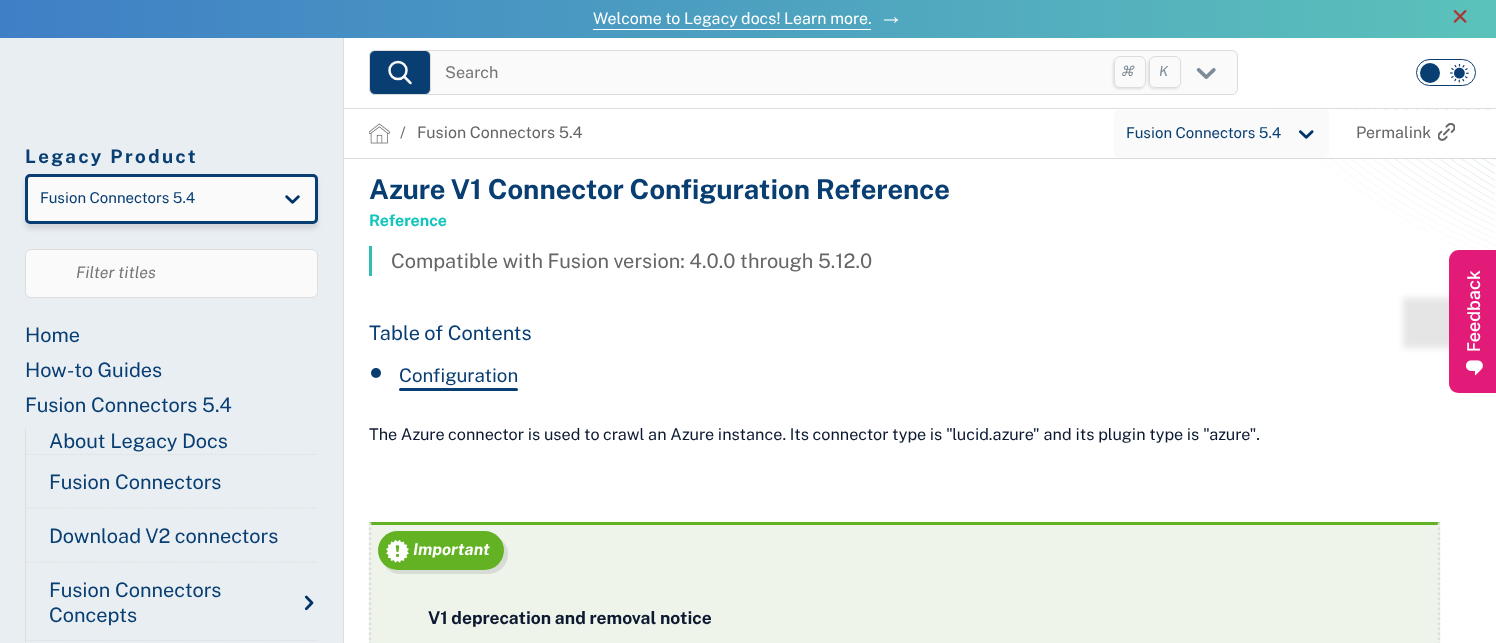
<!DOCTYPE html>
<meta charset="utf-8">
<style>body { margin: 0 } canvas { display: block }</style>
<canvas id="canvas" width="1496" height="643"></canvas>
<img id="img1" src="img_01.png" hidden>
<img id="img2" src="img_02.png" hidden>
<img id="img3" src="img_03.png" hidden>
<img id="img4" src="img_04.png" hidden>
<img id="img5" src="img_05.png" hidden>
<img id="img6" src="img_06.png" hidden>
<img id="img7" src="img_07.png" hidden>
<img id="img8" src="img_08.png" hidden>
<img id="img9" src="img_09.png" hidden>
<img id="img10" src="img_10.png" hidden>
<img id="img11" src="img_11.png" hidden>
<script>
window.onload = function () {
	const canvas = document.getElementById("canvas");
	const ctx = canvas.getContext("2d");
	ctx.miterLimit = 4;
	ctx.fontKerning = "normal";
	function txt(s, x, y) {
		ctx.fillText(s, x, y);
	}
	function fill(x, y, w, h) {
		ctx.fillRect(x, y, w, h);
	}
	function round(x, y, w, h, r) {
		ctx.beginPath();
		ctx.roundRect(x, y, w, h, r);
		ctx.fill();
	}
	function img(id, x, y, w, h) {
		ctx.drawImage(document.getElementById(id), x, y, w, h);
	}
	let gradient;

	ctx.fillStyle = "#FFFFFF";
	fill(0, 0, 1496, 643);
	gradient = ctx.createLinearGradient(0, 19, 1496, 19);
	gradient.addColorStop(0, "#3F7FC6");
	gradient.addColorStop(1, "#5BC2BA");
	ctx.fillStyle = gradient;
	fill(0, 0, 1496, 38);
	ctx.fillStyle = "#FFFFFF";
	fill(593, 29, 278, 1);
	img("img1", 1453, 10, 14, 13);
	ctx.fillStyle = "#E9EEF2";
	fill(0, 38, 343, 605);
	ctx.fillStyle = "#DDDDDD";
	fill(343, 38, 1, 605);
	ctx.fillStyle = "rgba(0, 0, 0, 0.1)";
	ctx.filter = "blur(2.5px)";
	ctx.beginPath();
	ctx.roundRect(25, 179, 293, 50, 5);
	ctx.fill();
	ctx.filter = "none";
	ctx.fillStyle = "#FAFAFA";
	ctx.beginPath();
	ctx.roundRect(26.5, 175.5, 290, 47, 3.5);
	ctx.fill();
	ctx.strokeStyle = "#093E73";
	ctx.lineWidth = 3;
	ctx.stroke();
	img("img2", 285, 195, 15, 9);
	ctx.beginPath();
	ctx.roundRect(25.5, 249.5, 292, 48, 5.5);
	ctx.fill();
	ctx.strokeStyle = "#DDDDDD";
	ctx.lineWidth = 1;
	ctx.stroke();
	ctx.beginPath();
	ctx.moveTo(25, 454.5);
	ctx.lineTo(317.5, 454.5);
	ctx.lineWidth = 1.2;
	ctx.setLineDash([1.25, 1.25]);
	ctx.stroke();
	ctx.fillStyle = "#DDDDDD";
	fill(25, 429, 1, 26);
	ctx.beginPath();
	ctx.moveTo(25, 508);
	ctx.lineTo(317.5, 508);
	ctx.stroke();
	fill(25, 455, 1, 54);
	ctx.beginPath();
	ctx.moveTo(25, 562);
	ctx.lineTo(317.5, 562);
	ctx.stroke();
	fill(25, 509, 1, 54);
	ctx.beginPath();
	ctx.moveTo(25, 640.5);
	ctx.lineTo(317.5, 640.5);
	ctx.stroke();
	fill(25, 563, 1, 80);
	img("img3", 304, 595, 10, 16);
	fill(344, 108, 1152, 1);
	ctx.fillStyle = "#FAFAFA";
	ctx.beginPath();
	ctx.roundRect(369.5, 50.5, 868, 44, 5.5);
	ctx.fill();
	ctx.lineWidth = 1;
	ctx.setLineDash([]);
	ctx.stroke();
	ctx.fillStyle = "#093E73";
	ctx.beginPath();
	ctx.roundRect(369.5, 50.5, 61, 44, 5.5);
	ctx.fill();
	ctx.stroke();
	ctx.beginPath();
	ctx.arc(398, 70.5, 8.5, 0, Math.PI * 2);
	ctx.strokeStyle = "#FAFAFA";
	ctx.lineWidth = 2.5;
	ctx.stroke();
	ctx.beginPath();
	ctx.moveTo(404, 76.5);
	ctx.lineTo(410.5, 83);
	ctx.lineCap = "round";
	ctx.stroke();
	ctx.save();
	ctx.beginPath();
	ctx.moveTo(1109, 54);
	ctx.lineTo(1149, 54);
	ctx.lineTo(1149, 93);
	ctx.lineTo(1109, 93);
	ctx.closePath();
	ctx.moveTo(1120, 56);
	ctx.lineTo(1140, 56);
	ctx.bezierCurveTo(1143.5, 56, 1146, 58.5, 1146, 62);
	ctx.lineTo(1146, 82);
	ctx.bezierCurveTo(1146, 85.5, 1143.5, 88, 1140, 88);
	ctx.lineTo(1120, 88);
	ctx.bezierCurveTo(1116.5, 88, 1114, 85.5, 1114, 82);
	ctx.lineTo(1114, 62);
	ctx.bezierCurveTo(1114, 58.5, 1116.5, 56, 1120, 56);
	ctx.closePath();
	ctx.clip("evenodd");
	ctx.fillStyle = "#DDDDDD";
	ctx.filter = "blur(1px)";
	ctx.beginPath();
	ctx.roundRect(1113, 58, 32, 31, 6);
	ctx.fill();
	ctx.filter = "none";
	ctx.restore();
	ctx.beginPath();
	ctx.roundRect(1114.5, 56.5, 31, 31, 5.5);
	ctx.strokeStyle = "#DDDDDD";
	ctx.lineWidth = 1;
	ctx.stroke();
	ctx.save();
	ctx.beginPath();
	ctx.moveTo(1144, 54);
	ctx.lineTo(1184, 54);
	ctx.lineTo(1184, 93);
	ctx.lineTo(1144, 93);
	ctx.closePath();
	ctx.moveTo(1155, 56);
	ctx.lineTo(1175, 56);
	ctx.bezierCurveTo(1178.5, 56, 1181, 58.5, 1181, 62);
	ctx.lineTo(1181, 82);
	ctx.bezierCurveTo(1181, 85.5, 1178.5, 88, 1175, 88);
	ctx.lineTo(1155, 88);
	ctx.bezierCurveTo(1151.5, 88, 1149, 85.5, 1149, 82);
	ctx.lineTo(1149, 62);
	ctx.bezierCurveTo(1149, 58.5, 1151.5, 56, 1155, 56);
	ctx.closePath();
	ctx.clip("evenodd");
	ctx.fillStyle = "#DDDDDD";
	ctx.filter = "blur(1px)";
	ctx.beginPath();
	ctx.roundRect(1148, 58, 32, 31, 6);
	ctx.fill();
	ctx.filter = "none";
	ctx.restore();
	ctx.beginPath();
	ctx.roundRect(1149.5, 56.5, 31, 31, 5.5);
	ctx.stroke();
	img("img4", 1196, 68, 20, 11);
	ctx.beginPath();
	ctx.roundRect(1416.5, 59.5, 59, 26, 13);
	ctx.strokeStyle = "#093E73";
	ctx.stroke();
	ctx.beginPath();
	ctx.arc(1430, 73, 10, 0, Math.PI * 2);
	ctx.fill();
	img("img5", 1450, 64, 19, 19);
	img("img6", 1274, 109, 222, 141);
	ctx.fillStyle = "#FFFFFF";
	fill(1275, 110, 221, 48);
	ctx.fillStyle = "#DDDDDD";
	fill(344, 158, 1152, 1);
	img("img7", 369, 123, 21, 21);
	ctx.fillStyle = "#FAFAFA";
	round(1114, 110, 215, 48, 5);
	img("img8", 1299, 130, 15, 9);
	img("img9", 1438, 123, 17, 18);
	ctx.fillStyle = "#31BDB6";
	fill(369, 246, 3, 30);
	ctx.fillStyle = "#093E73";
	ctx.beginPath();
	ctx.arc(376, 373, 5, 0, Math.PI * 2);
	ctx.fill();
	round(399, 388, 119, 3, 1.5);
	ctx.fillStyle = "#EFF4EB";
	fill(369, 525, 1071, 118);
	ctx.fillStyle = "#63B223";
	ctx.beginPath();
	ctx.moveTo(369, 522);
	ctx.lineTo(1440, 522);
	ctx.lineTo(1438, 525);
	ctx.lineTo(371, 525);
	ctx.closePath();
	ctx.fill();
	ctx.beginPath();
	ctx.moveTo(1439, 522.5);
	ctx.lineTo(1439, 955);
	ctx.strokeStyle = "#DDDDDD";
	ctx.lineWidth = 2.5;
	ctx.lineCap = "butt";
	ctx.setLineDash([2.5, 2.5]);
	ctx.stroke();
	ctx.beginPath();
	ctx.moveTo(370, 522.5);
	ctx.lineTo(370, 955);
	ctx.stroke();
	ctx.fillStyle = "#D7DCD4";
	ctx.beginPath();
	ctx.moveTo(384, 565);
	ctx.bezierCurveTo(388, 571, 394, 574, 400, 574);
	ctx.lineTo(488, 574);
	ctx.bezierCurveTo(499, 574, 508, 565, 508, 554);
	ctx.bezierCurveTo(508, 548, 505, 542, 499, 538);
	ctx.bezierCurveTo(502, 542, 504, 546, 504, 551);
	ctx.bezierCurveTo(504, 561, 495, 570, 484, 570);
	ctx.lineTo(397, 570);
	ctx.bezierCurveTo(392, 570, 388, 568, 384, 565);
	ctx.closePath();
	ctx.fill();
	ctx.fillStyle = "#63B223";
	round(378, 531, 126, 39, 19.5);
	img("img10", 386, 540, 23, 23);
	ctx.fillStyle = "rgba(0, 0, 0, 0.1)";
	ctx.filter = "blur(3px)";
	ctx.beginPath();
	ctx.rect(1403, 298, 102, 50);
	ctx.fill();
	ctx.filter = "none";
	ctx.fillStyle = "#E21B78";
	ctx.beginPath();
	ctx.moveTo(1449, 383);
	ctx.lineTo(1449, 260);
	ctx.bezierCurveTo(1449, 255, 1453, 250, 1459, 250);
	ctx.lineTo(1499, 250);
	ctx.lineTo(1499, 393);
	ctx.lineTo(1459, 393);
	ctx.bezierCurveTo(1453, 393, 1449, 389, 1449, 383);
	ctx.closePath();
	ctx.fill();
	img("img11", 1466, 360, 17, 16);
	ctx.font = "100 16px Public Sans";
	ctx.fillStyle = "#FFFFFF";
	txt("Welcome to Legacy docs! Learn more.", 593, 24);
	ctx.font = "24px Liberation Sans";
	txt("→", 879, 24);
	ctx.letterSpacing = "2.5px";
	ctx.font = "100 18.75px 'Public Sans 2'";
	ctx.fillStyle = "#093E73";
	txt("Legacy Product", 25, 163);
	ctx.letterSpacing = "0px";
	ctx.font = "100 15px Public Sans";
	txt("Fusion Connectors 5.4", 40, 203);
	ctx.font = "italic 100 16px 'Public Sans 2'";
	ctx.fillStyle = "#757575";
	txt("Filter titles", 76, 278);
	ctx.font = "100 20px Public Sans";
	ctx.fillStyle = "#093E73";
	txt("Home", 25, 342);
	gradient = ctx.createLinearGradient(171, 315, 171, 328);
	gradient.addColorStop(0, "#E9EEF2");
	gradient.addColorStop(1, "rgba(233, 238, 242, 0)");
	ctx.fillStyle = gradient;
	fill(27, 327, 11, 1);
	ctx.fillStyle = "#093E73";
	txt("How-to Guides", 25, 377);
	txt("Fusion Connectors 5.4", 25, 412);
	txt("About Legacy Docs", 49, 448);
	txt("Fusion Connectors", 49, 489);
	txt("Download V2 connectors", 49, 543);
	txt("Fusion Connectors", 49, 597);
	txt("Concepts", 49, 622);
	ctx.font = "100 16.25px Public Sans";
	ctx.fillStyle = "#757575";
	txt("Search", 445, 78);
	ctx.font = "italic 14px DejaVu Sans";
	ctx.fillStyle = "#7D8B99";
	txt("⌘", 1120, 76);
	ctx.font = "italic 100 14px 'Public Sans 2'";
	txt("K", 1159, 76);
	ctx.font = "100 16px Public Sans";
	ctx.fillStyle = "#666666";
	txt("/", 400, 138);
	txt("Fusion Connectors 5.4", 417, 138);
	ctx.font = "100 15px Public Sans";
	ctx.fillStyle = "#093E73";
	txt("Fusion Connectors 5.4", 1126, 138);
	ctx.font = "100 16px Public Sans";
	ctx.fillStyle = "#666666";
	txt("Permalink", 1356, 138);
	ctx.font = "100 27.5px 'Public Sans 2'";
	ctx.fillStyle = "#093E73";
	txt("Azure V1 Connector Configuration Reference", 369, 199);
	ctx.font = "100 16px 'Public Sans 2'";
	ctx.fillStyle = "#13C5BB";
	txt("Reference", 369, 226);
	ctx.font = "100 20px Public Sans";
	ctx.fillStyle = "#666666";
	txt("Compatible with Fusion version: 4.0.0 through 5.12.0", 391, 268);
	ctx.fillStyle = "#093E73";
	txt("Table of Contents", 369, 340);
	ctx.font = "100 18.75px Public Sans";
	txt("Configuration", 399, 382);
	ctx.font = "100 16.25px Public Sans";
	ctx.fillStyle = "#0C1930";
	txt("The Azure connector is used to crawl an Azure instance. Its connector type is \"lucid.azure\" and its plugin type is \"azure\".", 369, 440);
	ctx.font = "italic 100 16.25px Public Sans";
	ctx.fillStyle = "#FFFFFF";
	txt("Important", 413, 555);
	ctx.font = "100 17.5px 'Public Sans 2'";
	ctx.fillStyle = "#0C1930";
	txt("V1 deprecation and removal notice", 428, 624);
	ctx.font = "500 17.5px Inter";
	ctx.fillStyle = "#FFFFFF";
	ctx.save();
	ctx.translate(1480, 352);
	ctx.rotate(-90 * Math.PI / 180);
	ctx.fillText("Feedback", 0, 0);
	ctx.restore();
};
</script>
